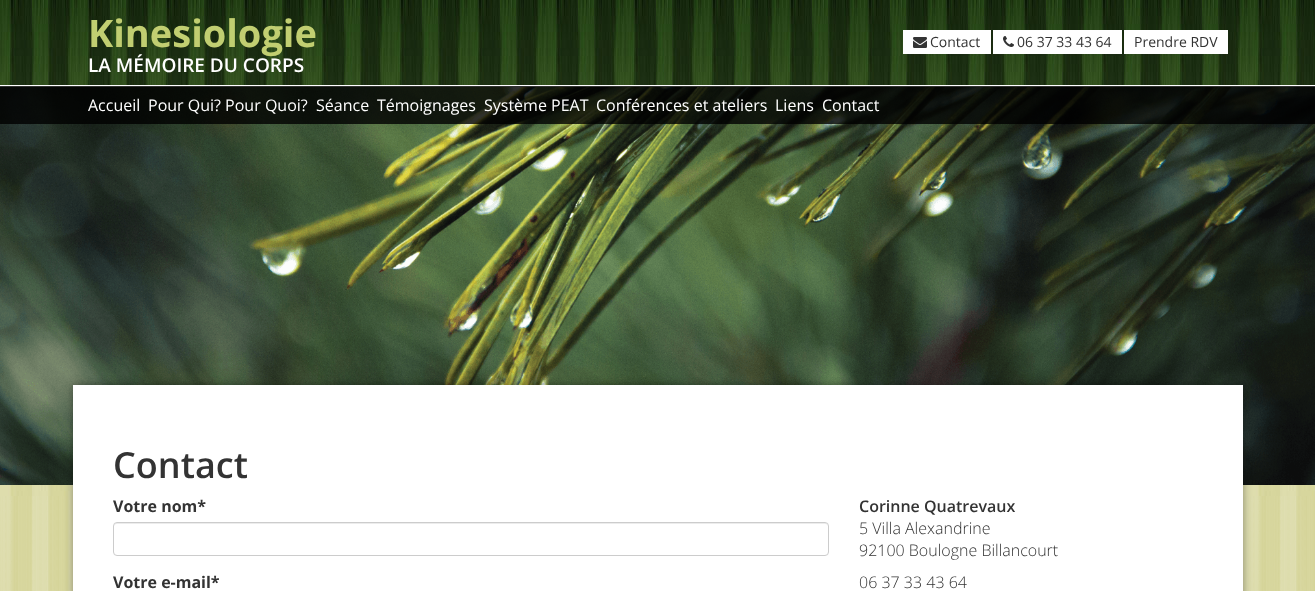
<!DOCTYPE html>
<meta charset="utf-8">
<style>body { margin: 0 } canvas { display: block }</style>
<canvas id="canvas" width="1315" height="591"></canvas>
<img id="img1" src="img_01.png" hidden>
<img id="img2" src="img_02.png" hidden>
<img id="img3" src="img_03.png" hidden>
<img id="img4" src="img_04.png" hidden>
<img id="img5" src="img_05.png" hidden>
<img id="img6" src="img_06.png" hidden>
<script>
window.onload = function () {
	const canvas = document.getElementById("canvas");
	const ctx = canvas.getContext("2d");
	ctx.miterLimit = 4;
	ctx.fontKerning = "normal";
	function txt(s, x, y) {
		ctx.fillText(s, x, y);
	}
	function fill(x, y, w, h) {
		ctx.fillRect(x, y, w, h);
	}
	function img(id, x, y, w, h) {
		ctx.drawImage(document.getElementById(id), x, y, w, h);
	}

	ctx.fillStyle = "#FFFFFF";
	fill(0, 0, 1315, 591);
	img("img1", 0, 496, 1315, 95);
	img("img2", 0, 0, 1315, 85);
	fill(903, 30, 88, 24);
	img("img3", 913, 37, 14, 11);
	fill(993, 30, 129, 24);
	img("img4", 1003, 36, 11, 11);
	fill(1124, 30, 104, 24);
	img("img5", 0, 485, 1315, 11);
	img("img6", 0, 87, 1315, 398);
	ctx.fillStyle = "rgba(0, 0, 0, 0.8)";
	fill(0, 86, 1315, 38);
	ctx.fillStyle = "rgba(0, 0, 0, 0.4)";
	ctx.filter = "blur(4px)";
	ctx.beginPath();
	ctx.rect(73, 385, 1170, 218);
	ctx.fill();
	ctx.filter = "none";
	ctx.fillStyle = "#FFFFFF";
	fill(73, 385, 1170, 206);
	ctx.fillStyle = "#ECECEC";
	ctx.beginPath();
	ctx.moveTo(117, 524);
	ctx.lineTo(825, 524);
	ctx.bezierCurveTo(827, 524, 828, 525, 828, 527);
	ctx.bezierCurveTo(828, 525, 827, 523, 825, 523);
	ctx.lineTo(117, 523);
	ctx.bezierCurveTo(115, 523, 114, 525, 114, 527);
	ctx.bezierCurveTo(114, 525, 115, 524, 117, 524);
	ctx.closePath();
	ctx.fill();
	ctx.beginPath();
	ctx.roundRect(113.5, 522.5, 715, 33, 3.5);
	ctx.strokeStyle = "#CCCCCC";
	ctx.stroke();
	ctx.font = "bold 38px Open Sans";
	ctx.fillStyle = "#C1CE71";
	txt("Kinesiologie", 88, 47);
	ctx.font = "600 19px Open Sans";
	ctx.fillStyle = "#FFFFFF";
	txt("LA MÉMOIRE DU CORPS", 88, 72);
	ctx.font = "14px Open Sans";
	ctx.fillStyle = "#333333";
	txt("Contact", 930, 47);
	txt("06 37 33 43 64", 1017, 47);
	txt("Prendre RDV", 1134, 47);
	ctx.font = "16px Open Sans";
	ctx.fillStyle = "#FFFFFF";
	txt("Accueil", 88, 111);
	txt("Pour Qui? Pour Quoi?", 148, 111);
	txt("Séance", 316, 111);
	txt("Témoignages", 377, 111);
	txt("Système PEAT", 484, 111);
	txt("Conférences et ateliers", 596, 111);
	txt("Liens", 775, 111);
	txt("Contact", 822, 111);
	ctx.font = "600 36px Open Sans";
	ctx.fillStyle = "#333333";
	txt("Contact", 113, 478);
	ctx.font = "bold 16px Open Sans";
	txt("Votre nom*", 113, 512);
	txt("Votre e-mail*", 113, 588);
	ctx.font = "600 16px Open Sans";
	txt("Corinne Quatrevaux", 859, 512);
	ctx.font = "300 16px Open Sans";
	txt("5 Villa Alexandrine", 859, 534);
	txt("92100 Boulogne Billancourt", 859, 556);
	txt("06 37 33 43 64", 859, 588);
};
</script>
